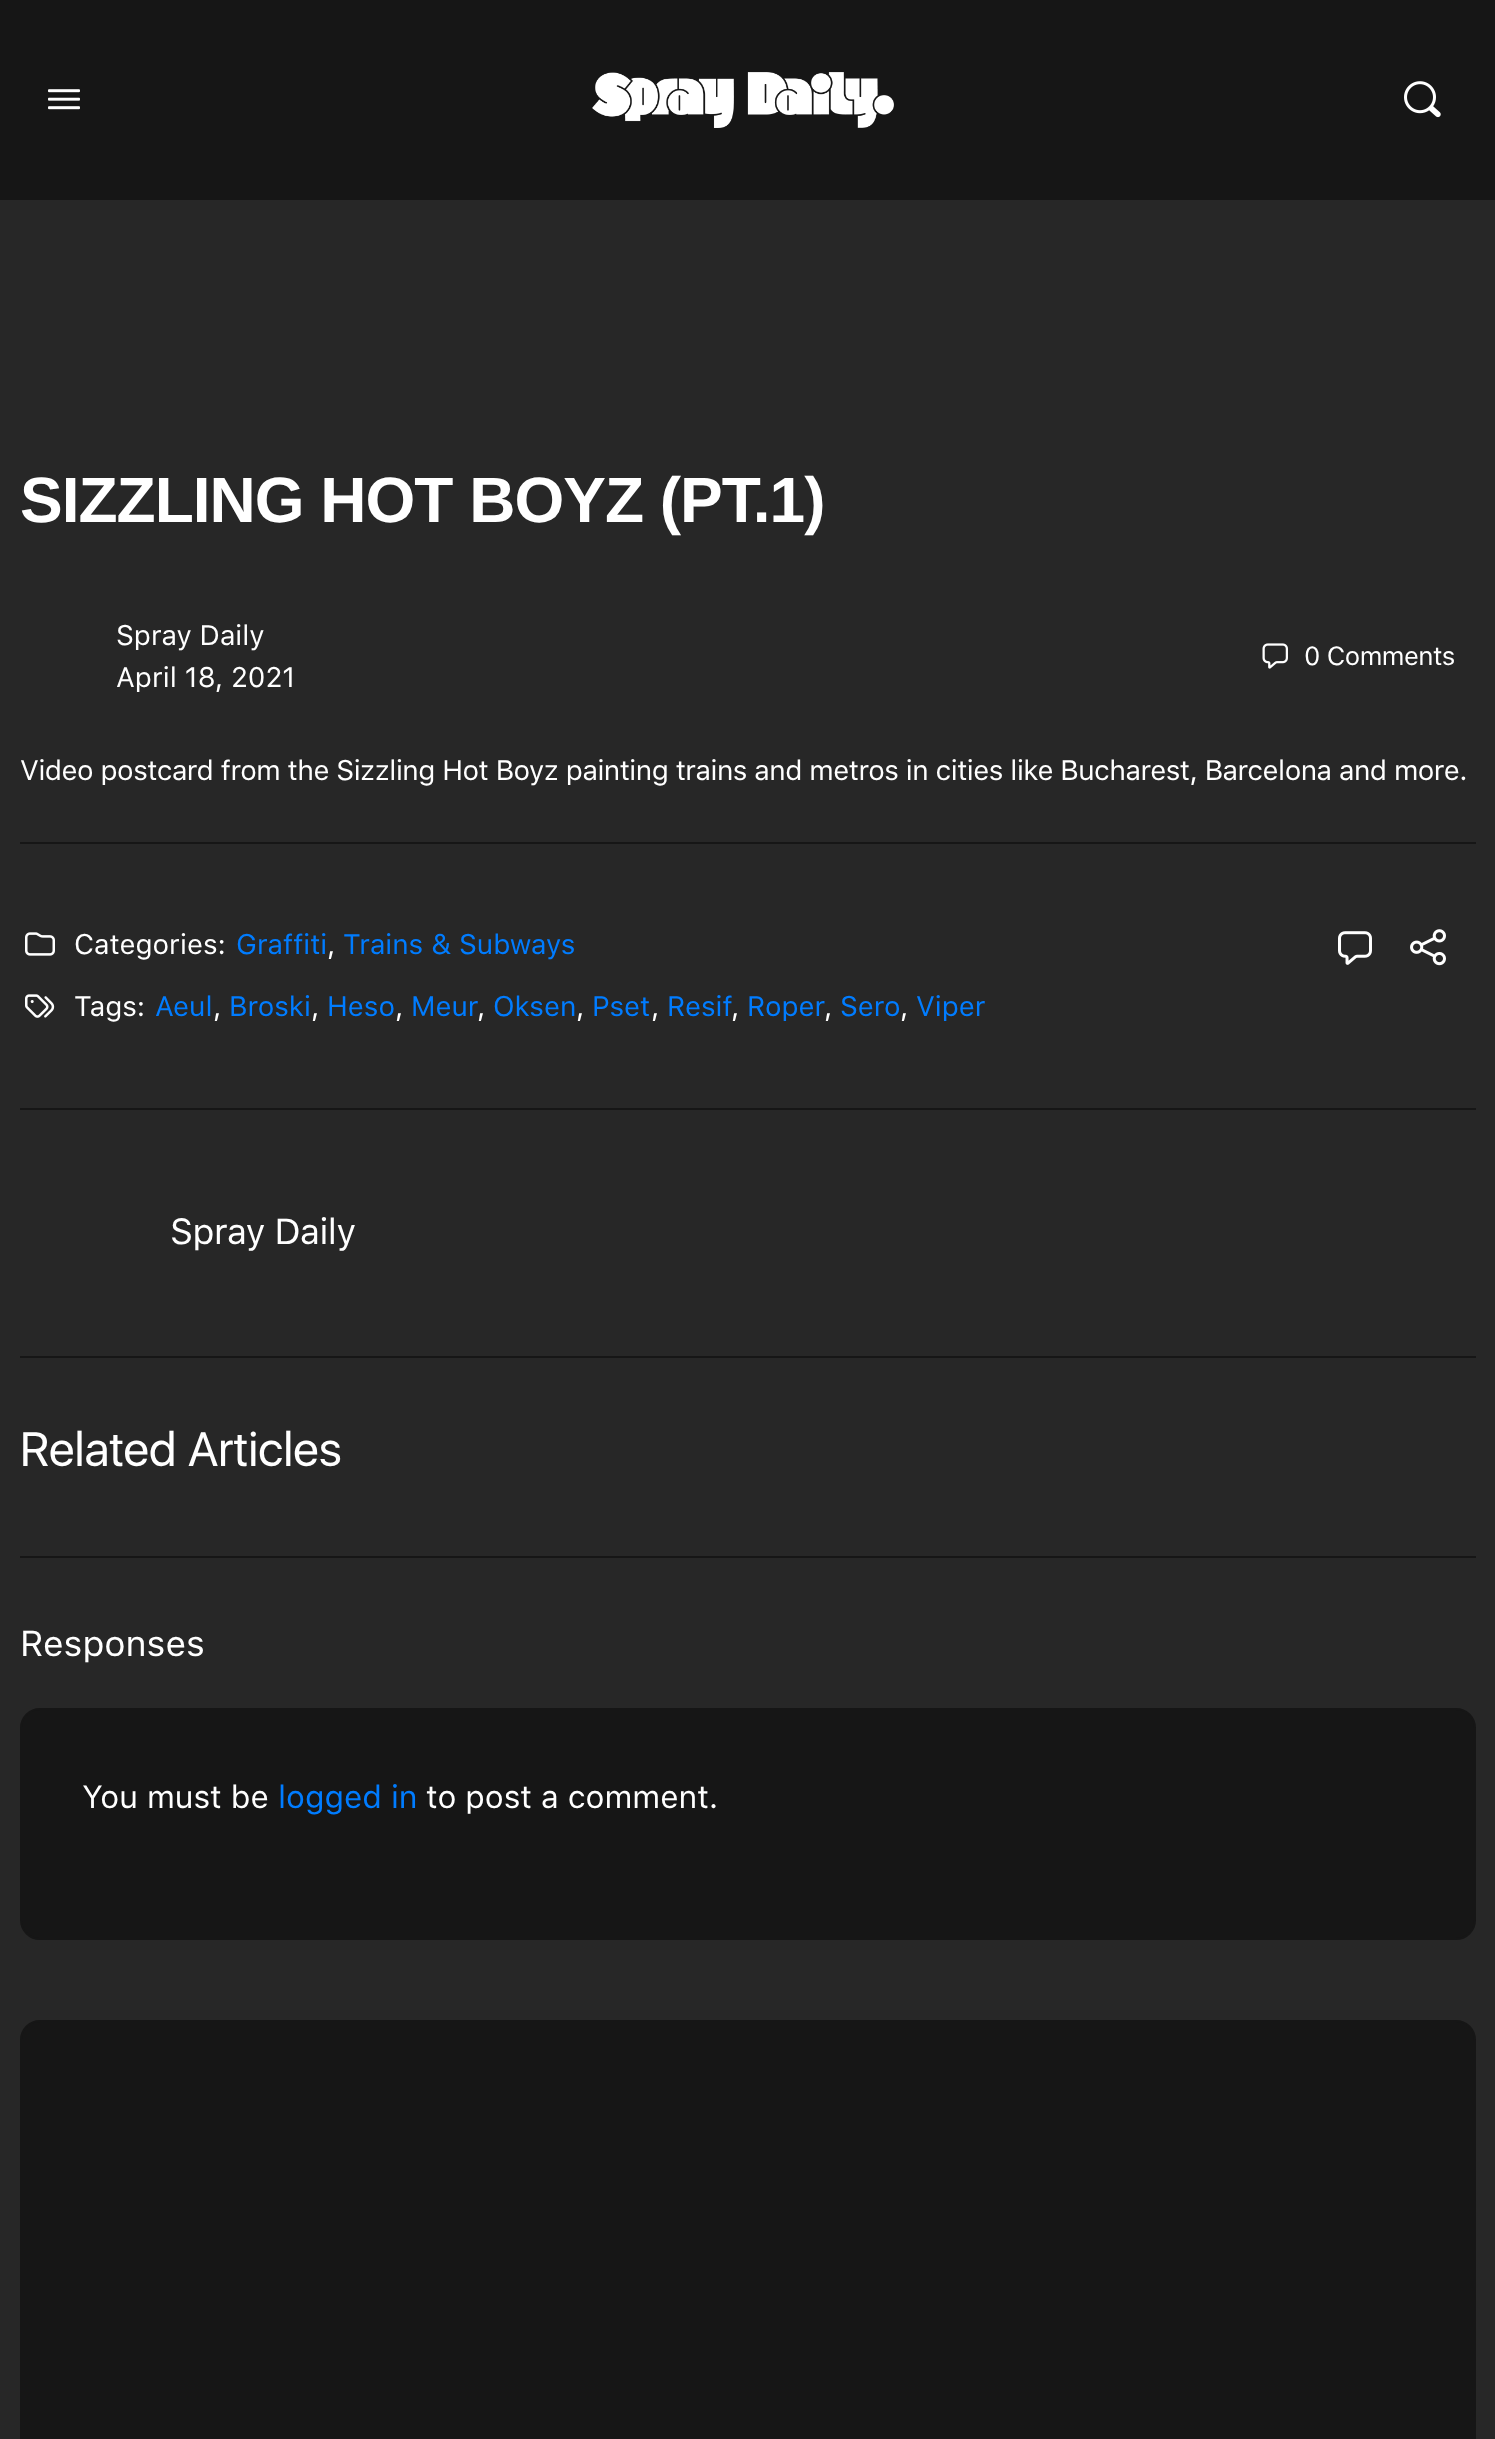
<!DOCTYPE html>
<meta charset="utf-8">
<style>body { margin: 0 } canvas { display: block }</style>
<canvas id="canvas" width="1495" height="2439"></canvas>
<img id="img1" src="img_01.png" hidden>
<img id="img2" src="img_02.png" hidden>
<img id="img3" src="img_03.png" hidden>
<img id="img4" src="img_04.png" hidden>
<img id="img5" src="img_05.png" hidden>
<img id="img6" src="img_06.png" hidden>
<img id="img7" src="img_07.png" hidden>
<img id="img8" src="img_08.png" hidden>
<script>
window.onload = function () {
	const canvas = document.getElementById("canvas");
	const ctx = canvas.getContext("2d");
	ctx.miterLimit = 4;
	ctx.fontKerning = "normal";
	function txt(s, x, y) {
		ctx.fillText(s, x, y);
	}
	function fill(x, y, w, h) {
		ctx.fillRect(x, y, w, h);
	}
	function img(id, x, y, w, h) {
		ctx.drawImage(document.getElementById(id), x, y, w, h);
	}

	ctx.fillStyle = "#272727";
	fill(0, 0, 1495, 2439);
	ctx.fillStyle = "#161616";
	fill(0, 0, 1495, 200);
	img("img1", 48, 89, 32, 21);
	img("img2", 592, 72, 302, 56);
	img("img3", 1404, 81, 37, 37);
	img("img4", 1262, 643, 26, 26);
	fill(20, 842, 1456, 2);
	img("img5", 25, 932, 30, 24);
	img("img6", 25, 994, 30, 24);
	img("img7", 1338, 931, 34, 34);
	img("img8", 1410, 929, 36, 37);
	fill(20, 1356, 1456, 2);
	fill(20, 1108, 1456, 2);
	fill(20, 1556, 1456, 2);
	ctx.beginPath();
	ctx.roundRect(21, 1709, 1454, 230, 19);
	ctx.fill();
	ctx.strokeStyle = "#161616";
	ctx.lineWidth = 2;
	ctx.stroke();
	ctx.beginPath();
	ctx.roundRect(21, 2021, 1454, 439, 19);
	ctx.fill();
	ctx.stroke();
	ctx.letterSpacing = "-1px";
	ctx.font = "bold 64px Liberation Sans";
	ctx.fillStyle = "#FFFFFF";
	txt("SIZZLING HOT BOYZ (PT.1)", 20, 522);
	ctx.letterSpacing = "0px";
	ctx.font = "28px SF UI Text";
	txt("Spray Daily", 116, 645);
	txt("April 18, 2021", 116, 687);
	ctx.letterSpacing = "-0.5px";
	ctx.font = "26px SF UI Text";
	txt("0 Comments", 1304, 665);
	ctx.letterSpacing = "-0.48px";
	ctx.font = "28px SF UI Text";
	txt("Video postcard from the Sizzling Hot Boyz painting trains and metros in cities like Bucharest, Barcelona and more.", 20, 780);
	ctx.letterSpacing = "0px";
	txt("Categories:", 74, 954);
	ctx.fillStyle = "#007CFF";
	txt("Graffiti", 236, 954);
	ctx.fillStyle = "#FFFFFF";
	txt(",", 327, 954);
	ctx.fillStyle = "#007CFF";
	txt("Trains & Subways", 343, 954);
	ctx.fillStyle = "#FFFFFF";
	txt("Tags:", 74, 1016);
	ctx.fillStyle = "#007CFF";
	txt("Aeul", 155, 1016);
	ctx.fillStyle = "#FFFFFF";
	txt(",", 213, 1016);
	ctx.fillStyle = "#007CFF";
	txt("Broski", 229, 1016);
	ctx.fillStyle = "#FFFFFF";
	txt(",", 311, 1016);
	ctx.fillStyle = "#007CFF";
	txt("Heso", 327, 1016);
	ctx.fillStyle = "#FFFFFF";
	txt(",", 395, 1016);
	ctx.fillStyle = "#007CFF";
	txt("Meur", 411, 1016);
	ctx.fillStyle = "#FFFFFF";
	txt(",", 477, 1016);
	ctx.fillStyle = "#007CFF";
	txt("Oksen", 493, 1016);
	ctx.fillStyle = "#FFFFFF";
	txt(",", 576, 1016);
	ctx.fillStyle = "#007CFF";
	txt("Pset", 592, 1016);
	ctx.fillStyle = "#FFFFFF";
	txt(",", 651, 1016);
	ctx.fillStyle = "#007CFF";
	txt("Resif", 667, 1016);
	ctx.fillStyle = "#FFFFFF";
	txt(",", 731, 1016);
	ctx.fillStyle = "#007CFF";
	txt("Roper", 747, 1016);
	ctx.fillStyle = "#FFFFFF";
	txt(",", 824, 1016);
	ctx.fillStyle = "#007CFF";
	txt("Sero", 840, 1016);
	ctx.fillStyle = "#FFFFFF";
	txt(",", 900, 1016);
	ctx.fillStyle = "#007CFF";
	txt("Viper", 916, 1016);
	ctx.letterSpacing = "-0.5px";
	ctx.font = "36px SF UI Text";
	ctx.fillStyle = "#FFFFFF";
	txt("Spray Daily", 170, 1244);
	ctx.letterSpacing = "0px";
	ctx.font = "48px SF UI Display";
	txt("Related Articles", 20, 1466);
	ctx.font = "36px SF UI Text";
	txt("Responses", 20, 1656);
	ctx.font = "32px SF UI Text";
	txt("You must be", 82, 1808);
	ctx.fillStyle = "#007CFF";
	txt("logged in", 278, 1808);
	ctx.fillStyle = "#FFFFFF";
	txt("to post a comment.", 426, 1808);
};
</script>
